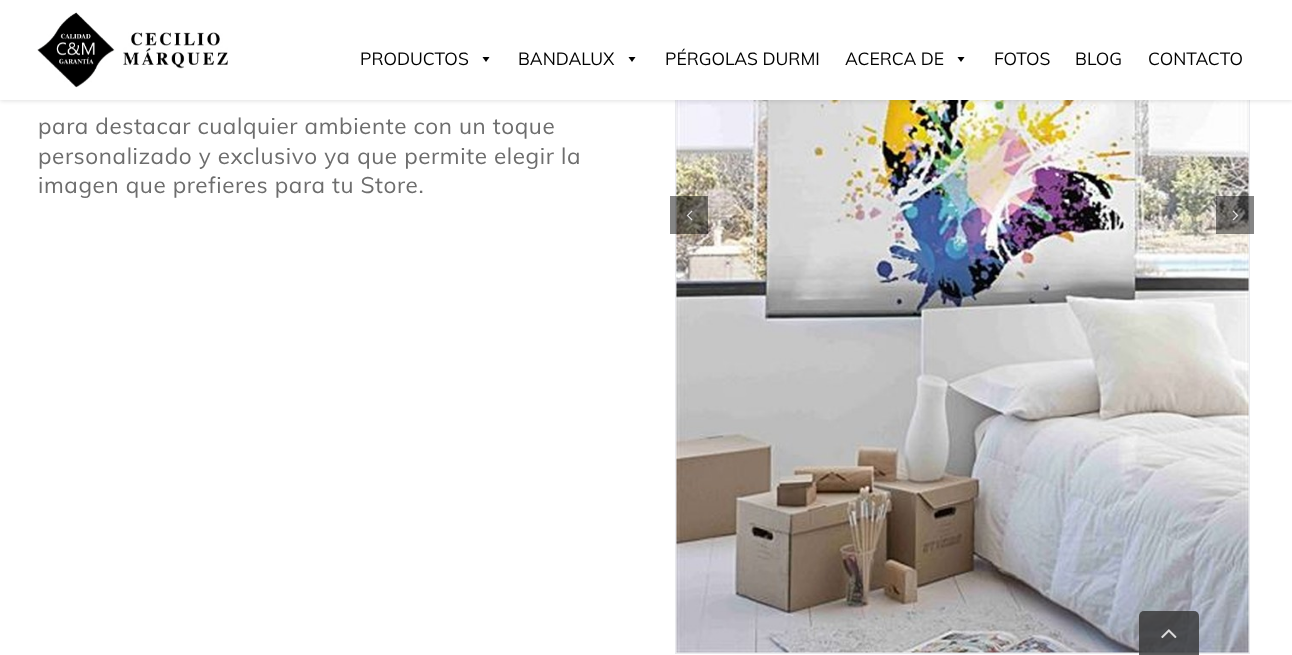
<!DOCTYPE html>
<meta charset="utf-8">
<style>body { margin: 0 } canvas { display: block }</style>
<canvas id="canvas" width="1292" height="655"></canvas>
<img id="img1" src="img_02.png" hidden>
<img id="img2" src="img_01.png" hidden>
<img id="img3" src="img_03.png" hidden>
<img id="img4" src="img_04.png" hidden>
<img id="img5" src="img_05.png" hidden>
<script>
window.onload = function () {
	const canvas = document.getElementById("canvas");
	const ctx = canvas.getContext("2d");
	ctx.miterLimit = 4;
	ctx.fontKerning = "normal";
	function txt(s, x, y) {
		ctx.fillText(s, x, y);
	}
	function fill(x, y, w, h) {
		ctx.fillRect(x, y, w, h);
	}
	function img(id, x, y, w, h) {
		ctx.drawImage(document.getElementById(id), x, y, w, h);
	}

	ctx.fillStyle = "#FFFFFF";
	fill(0, 0, 1292, 655);
	ctx.strokeStyle = "#E9EAEE";
	ctx.strokeRect(675.5, -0.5, 574, 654);
	img("img1", 676, 100, 573, 553);
	ctx.fillStyle = "rgba(0, 0, 0, 0.12)";
	ctx.filter = "blur(2px)";
	ctx.beginPath();
	ctx.rect(0, 1, 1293, 100);
	ctx.fill();
	ctx.filter = "none";
	ctx.fillStyle = "#FFFFFF";
	fill(0, 0, 1292, 100);
	img("img2", 37, 12, 191, 76);
	ctx.fillStyle = "#000000";
	ctx.beginPath();
	ctx.moveTo(489.5, 57);
	ctx.lineTo(486, 62);
	ctx.lineTo(482.5, 57);
	ctx.closePath();
	ctx.fill();
	ctx.beginPath();
	ctx.moveTo(635.5, 57);
	ctx.lineTo(632, 62);
	ctx.lineTo(628.5, 57);
	ctx.closePath();
	ctx.fill();
	ctx.beginPath();
	ctx.moveTo(964.5, 57);
	ctx.lineTo(961, 62);
	ctx.lineTo(957.5, 57);
	ctx.closePath();
	ctx.fill();
	ctx.fillStyle = "rgba(0, 0, 0, 0.48)";
	fill(670, 196, 38, 38);
	img("img3", 686, 210, 7, 11);
	fill(1216, 196, 38, 38);
	img("img4", 1232, 210, 7, 11);
	ctx.fillStyle = "rgba(51, 51, 51, 0.8)";
	ctx.beginPath();
	ctx.roundRect(1139, 611, 60, 44, [5, 5, 0, 0]);
	ctx.fill();
	img("img5", 1161, 629, 16, 10);
	ctx.font = "17.5px Muli";
	ctx.fillStyle = "#000000";
	txt("PRODUCTOS", 360, 65);
	txt("BANDALUX", 518, 65);
	txt("PÉRGOLAS DURMI", 665, 65);
	txt("ACERCA DE", 845, 65);
	txt("FOTOS", 994, 65);
	txt("BLOG", 1075, 65);
	txt("CONTACTO", 1148, 65);
	ctx.letterSpacing = "0.6px";
	ctx.font = "22.5px Muli";
	ctx.fillStyle = "#6D6D6D";
	txt("para destacar cualquier ambiente con un toque", 38, 134);
	txt("personalizado y exclusivo ya que permite elegir la", 38, 164);
	txt("imagen que prefieres para tu Store.", 38, 193);
};
</script>
